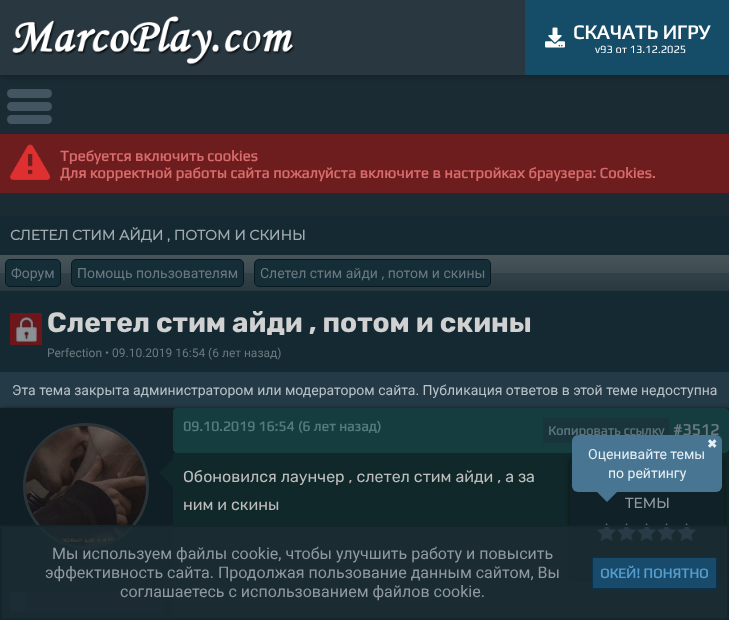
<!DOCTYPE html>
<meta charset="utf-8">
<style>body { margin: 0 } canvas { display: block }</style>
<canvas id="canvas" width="729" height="620"></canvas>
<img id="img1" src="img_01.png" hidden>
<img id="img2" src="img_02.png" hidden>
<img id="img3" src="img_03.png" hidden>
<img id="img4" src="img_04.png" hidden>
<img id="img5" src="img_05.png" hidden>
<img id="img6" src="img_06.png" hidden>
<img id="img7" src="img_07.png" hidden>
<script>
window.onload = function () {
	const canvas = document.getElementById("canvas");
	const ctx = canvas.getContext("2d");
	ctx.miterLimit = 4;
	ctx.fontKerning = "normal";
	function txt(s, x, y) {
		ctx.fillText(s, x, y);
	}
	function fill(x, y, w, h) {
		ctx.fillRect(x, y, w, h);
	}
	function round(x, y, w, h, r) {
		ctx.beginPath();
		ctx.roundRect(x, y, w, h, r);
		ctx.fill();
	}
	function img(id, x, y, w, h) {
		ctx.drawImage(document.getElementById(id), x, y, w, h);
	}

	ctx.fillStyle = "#1B2B33";
	fill(0, 0, 729, 620);
	ctx.fillStyle = "rgba(0, 0, 0, 0.2)";
	ctx.filter = "blur(2px)";
	ctx.beginPath();
	ctx.rect(0, 2, 729, 75);
	ctx.fill();
	ctx.filter = "none";
	ctx.fillStyle = "#283740";
	fill(0, 0, 525, 75);
	img("img1", 12, 16, 283, 51);
	ctx.fillStyle = "#154D69";
	fill(525, 0, 204, 75);
	img("img2", 545, 27, 20, 21);
	ctx.fillStyle = "#435561";
	round(7, 89, 45, 9, 4.5);
	round(7, 102, 45, 9, 4.5);
	round(7, 115, 45, 9, 4.5);
	ctx.fillStyle = "#6D1D1D";
	fill(0, 134, 729, 59);
	img("img3", 10, 144, 40, 36);
	ctx.fillStyle = "#142931";
	fill(0, 216, 729, 237);
	img("img4", 0, 255, 729, 36);
	ctx.fillStyle = "#152D36";
	ctx.beginPath();
	ctx.roundRect(5.5, 259.5, 55, 27, 4.5);
	ctx.fill();
	ctx.strokeStyle = "#081A21";
	ctx.stroke();
	ctx.beginPath();
	ctx.roundRect(71.5, 259.5, 172, 27, 4.5);
	ctx.fill();
	ctx.stroke();
	ctx.beginPath();
	ctx.roundRect(254.5, 259.5, 236, 27, 4.5);
	ctx.fill();
	ctx.stroke();
	img("img5", 10, 313, 32, 32);
	ctx.fillStyle = "#253A47";
	fill(0, 372, 729, 36);
	ctx.fillStyle = "#101010";
	ctx.filter = "blur(2.5px)";
	ctx.beginPath();
	ctx.rect(0, 409, 729, 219);
	ctx.fill();
	ctx.filter = "none";
	ctx.fillStyle = "#0F1F25";
	fill(0, 408, 173, 210);
	ctx.beginPath();
	ctx.arc(86, 486, 61.5, 0, Math.PI * 2);
	ctx.strokeStyle = "#2C3438";
	ctx.lineWidth = 3;
	ctx.stroke();
	img("img6", 26, 426, 120, 120);
	ctx.fillStyle = "#19262F";
	fill(10, 591, 153, 22);
	ctx.fillStyle = "#22303A";
	fill(11, 592, 14, 20);
	ctx.fillStyle = "#102829";
	ctx.beginPath();
	ctx.moveTo(174, 458);
	ctx.lineTo(174, 488);
	ctx.lineTo(159, 473);
	ctx.closePath();
	ctx.fill();
	ctx.fillStyle = "#153D40";
	round(173, 408, 556, 45, 4);
	ctx.fillStyle = "#1A343C";
	fill(543, 418, 126, 25);
	ctx.fillStyle = "#102829";
	fill(173, 453, 556, 165);
	ctx.fillStyle = "#101010";
	ctx.filter = "blur(2.5px)";
	ctx.beginPath();
	ctx.rect(570, 459, 154, 121);
	ctx.fill();
	ctx.filter = "none";
	ctx.fillStyle = "#102127";
	fill(570, 458, 154, 121);
	ctx.fillStyle = "#487592";
	ctx.beginPath();
	ctx.moveTo(597, 492);
	ctx.lineTo(617, 492);
	ctx.lineTo(607, 502);
	ctx.closePath();
	ctx.fill();
	img("img7", 597, 523, 99, 18);
	ctx.fillStyle = "rgba(29, 45, 53, 0.8)";
	ctx.beginPath();
	ctx.rect(1, 526, 727, 93);
	ctx.fill();
	ctx.strokeStyle = "#15252C";
	ctx.lineWidth = 2;
	ctx.stroke();
	ctx.fillStyle = "#174A6B";
	ctx.beginPath();
	ctx.rect(592.5, 557.5, 124, 31);
	ctx.fill();
	ctx.strokeStyle = "#0A324C";
	ctx.lineWidth = 1;
	ctx.stroke();
	ctx.font = "bold 20px Play";
	ctx.fillStyle = "#FFFFFF";
	txt("СКАЧАТЬ ИГРУ", 573, 39);
	ctx.font = "11px Play";
	txt("v93 от 13.12.2025", 595, 53);
	ctx.font = "bold 15px Play";
	ctx.fillStyle = "#D86B6B";
	txt("Требуется включить cookies", 60, 161);
	txt("Для корректной работы сайта пожалуйста включите в настройках браузера: Cookies.", 60, 178);
	ctx.font = "bold 14px Montserrat";
	ctx.fillStyle = "#A3AAAF";
	txt("СЛЕТЕЛ СТИМ АЙДИ , ПОТОМ И СКИНЫ", 10, 240);
	ctx.font = "14px Roboto";
	ctx.fillStyle = "#6D7980";
	txt("Форум", 11, 278);
	txt("Помощь пользователям", 77, 278);
	txt("Слетел стим айди , потом и скины", 260, 278);
	ctx.font = "bold 28px Rubik";
	ctx.fillStyle = "#D1D1D1";
	txt("Слетел стим айди , потом и скины", 47, 332);
	ctx.font = "12px Roboto";
	ctx.fillStyle = "#6D7980";
	txt("Perfection • 09.10.2019 16:54 (6 лет назад)", 47, 357);
	ctx.font = "14px Roboto";
	ctx.fillStyle = "#B9C2C7";
	txt("Эта тема закрыта администратором или модератором сайта. Публикация ответов в этой теме недоступна", 12, 395);
	ctx.font = "bold 14px Play";
	ctx.fillStyle = "#537B7D";
	txt("09.10.2019 16:54 (6 лет назад)", 183, 431);
	ctx.font = "bold 13px Play";
	ctx.fillStyle = "#5B737D";
	txt("Копировать ссылку", 548, 435);
	ctx.font = "bold 16px Play";
	ctx.fillStyle = "#6D7980";
	txt("#3512", 673, 435);
	ctx.font = "16px Rubik";
	ctx.fillStyle = "#BDBDBD";
	txt("Обоновился лаунчер , слетел стим айди , а за", 183, 482);
	txt("ним и скины", 183, 510);
	ctx.fillStyle = "#487592";
	round(572, 435, 150, 57, 6);
	ctx.font = "bold 12px DejaVu Sans";
	ctx.fillStyle = "#E7EFF5";
	txt("✖", 707, 448);
	ctx.font = "14px Roboto";
	txt("Оценивайте темы", 588, 459);
	txt("по рейтингу", 608, 478);
	ctx.font = "bold 14px Montserrat";
	ctx.fillStyle = "#9199A0";
	txt("ТЕМЫ", 625, 508);
	ctx.font = "16px Roboto";
	txt("Мы используем файлы cookie, чтобы улучшить работу и повысить", 52, 559);
	txt("эффективность сайта. Продолжая пользование данным сайтом, Вы", 45, 578);
	txt("соглашаетесь с использованием файлов cookie.", 120, 597);
	ctx.font = "bold 14px Play";
	ctx.fillStyle = "#549DCC";
	txt("ОКЕЙ! ПОНЯТНО", 600, 578);
};
</script>
